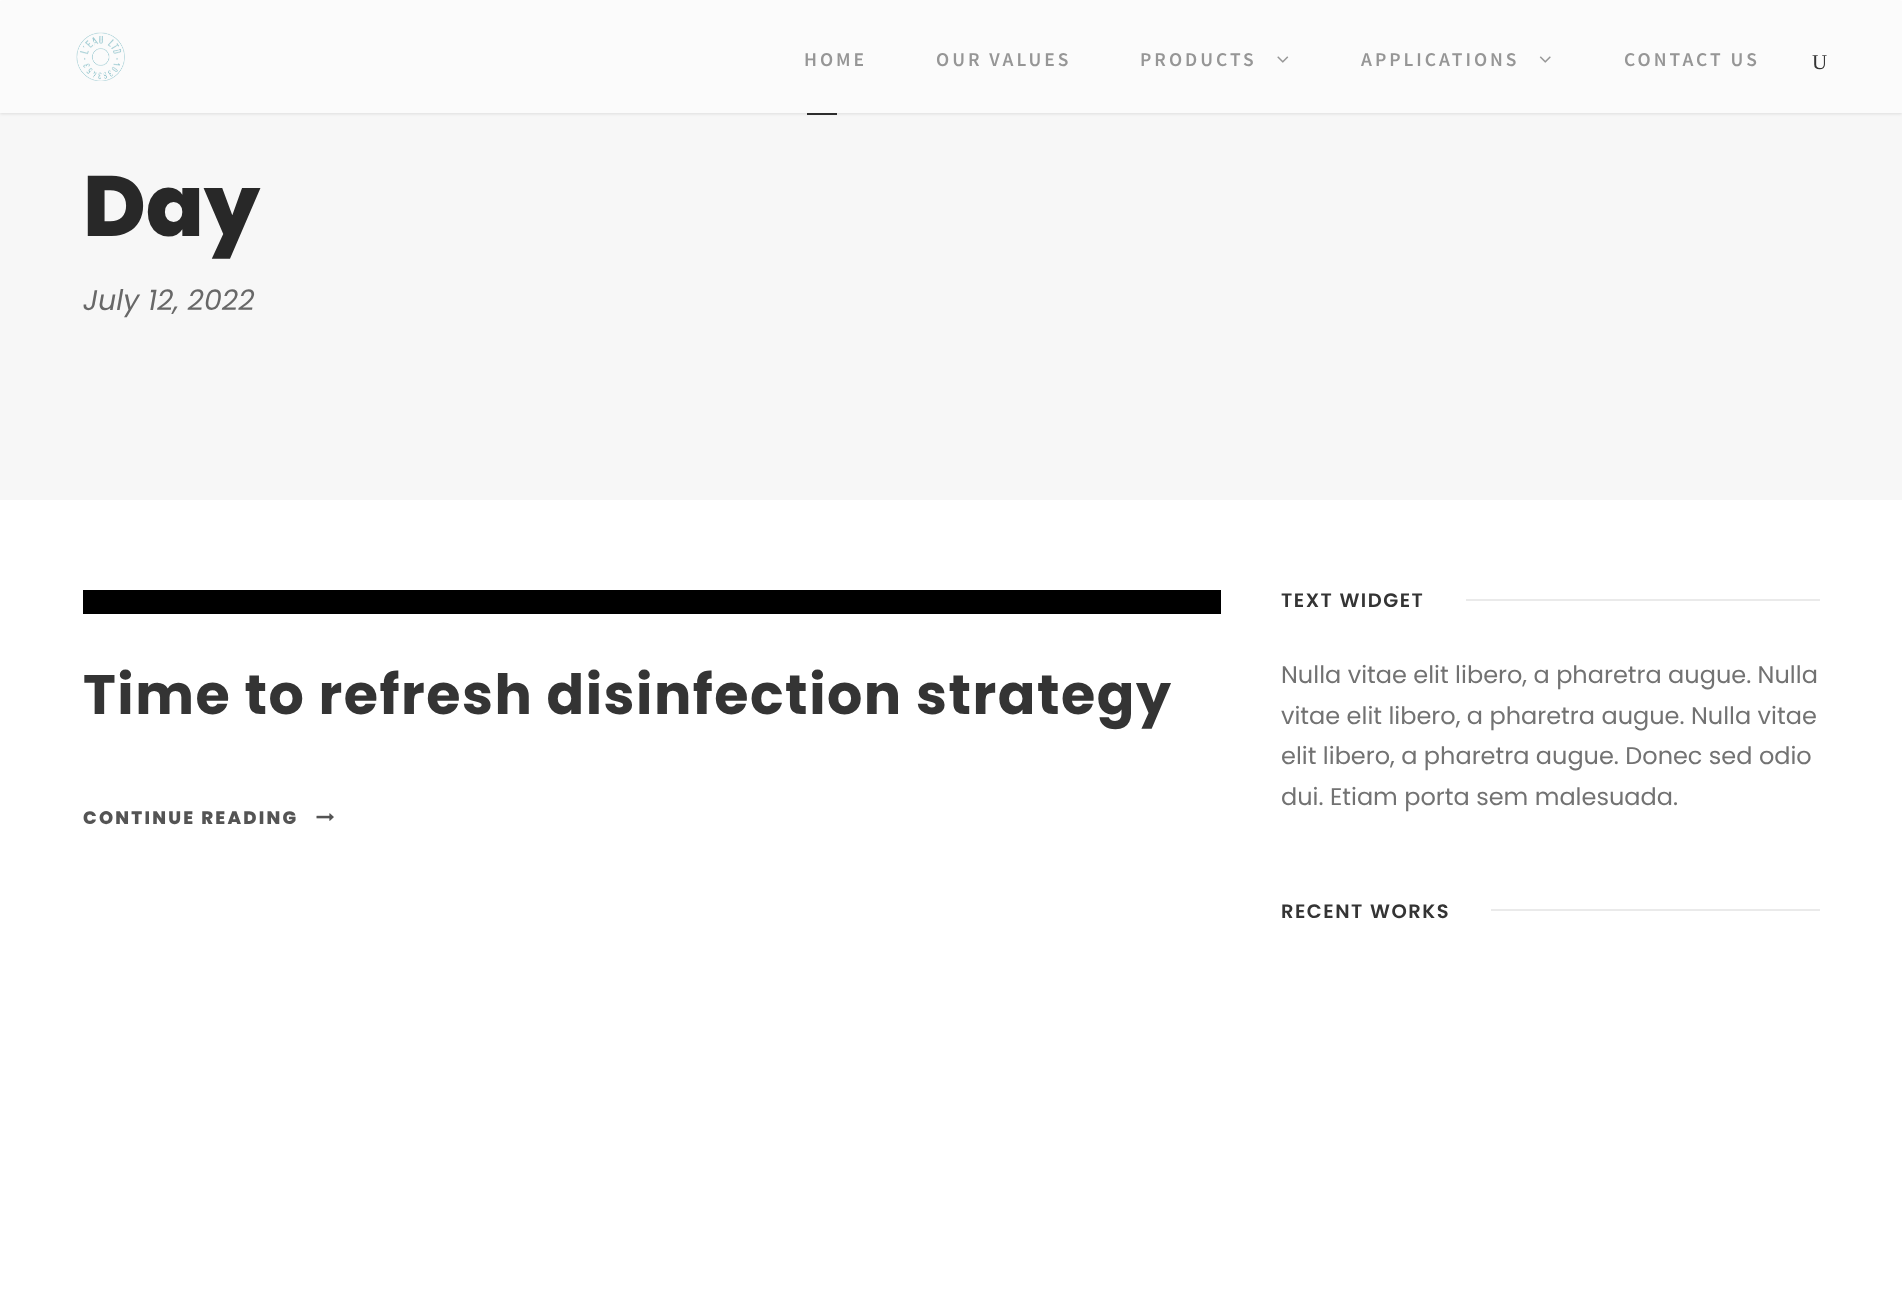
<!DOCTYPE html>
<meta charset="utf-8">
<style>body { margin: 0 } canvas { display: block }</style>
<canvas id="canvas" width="1902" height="1312"></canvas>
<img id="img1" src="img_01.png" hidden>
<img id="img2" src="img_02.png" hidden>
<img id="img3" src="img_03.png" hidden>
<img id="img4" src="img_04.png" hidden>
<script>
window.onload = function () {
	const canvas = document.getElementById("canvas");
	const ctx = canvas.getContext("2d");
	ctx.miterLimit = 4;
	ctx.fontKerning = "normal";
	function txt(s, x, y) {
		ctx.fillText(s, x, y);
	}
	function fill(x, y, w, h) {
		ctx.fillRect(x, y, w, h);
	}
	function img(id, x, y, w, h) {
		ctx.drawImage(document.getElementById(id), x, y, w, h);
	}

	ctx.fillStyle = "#FFFFFF";
	fill(0, 0, 1902, 1312);
	ctx.fillStyle = "#F7F7F7";
	fill(0, 113, 1902, 387);
	ctx.fillStyle = "rgba(0, 0, 0, 0.1)";
	ctx.filter = "blur(1.5px)";
	ctx.beginPath();
	ctx.rect(0, 2, 1902, 112);
	ctx.fill();
	ctx.filter = "none";
	ctx.fillStyle = "#FBFBFB";
	fill(0, 1, 1902, 112);
	img("img1", 76, 32, 49, 49);
	img("img2", 1277, 56, 12, 7);
	img("img3", 1539, 56, 12, 7);
	ctx.fillStyle = "#2D2D2D";
	fill(807, 113, 30, 2);
	ctx.fillStyle = "#000000";
	fill(83, 590, 1138, 24);
	img("img4", 316, 813, 18, 8);
	ctx.fillStyle = "#EAEAEA";
	fill(1466, 599, 354, 2);
	fill(1491, 909, 329, 2);
	ctx.letterSpacing = "3px";
	ctx.font = "600 19.5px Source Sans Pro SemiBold";
	ctx.fillStyle = "#969696";
	txt("HOME", 804, 66);
	txt("OUR VALUES", 936, 66);
	txt("PRODUCTS", 1140, 66);
	txt("APPLICATIONS", 1361, 66);
	txt("CONTACT US", 1624, 66);
	ctx.letterSpacing = "0px";
	ctx.font = "21px Liberation Serif";
	ctx.fillStyle = "#343434";
	txt("U", 1812, 69);
	ctx.font = "800 85.5px Poppins";
	ctx.fillStyle = "#282828";
	txt("Day", 83, 236);
	ctx.font = "italic 28.5px Poppins";
	ctx.fillStyle = "#686868";
	txt("July 12, 2022", 83, 310);
	ctx.letterSpacing = "1.5px";
	ctx.font = "bold 55.5px Poppins";
	ctx.fillStyle = "#343434";
	txt("Time to refresh disinfection strategy", 83, 714);
	ctx.letterSpacing = "2.25px";
	ctx.font = "800 18px Poppins";
	ctx.fillStyle = "#545454";
	txt("CONTINUE READING", 83, 824);
	ctx.letterSpacing = "1.5px";
	ctx.font = "600 19.5px Poppins";
	ctx.fillStyle = "#343434";
	txt("TEXT WIDGET", 1281, 607);
	ctx.letterSpacing = "0px";
	ctx.font = "24px Poppins";
	ctx.fillStyle = "#727272";
	txt("Nulla vitae elit libero, a pharetra augue. Nulla", 1281, 683);
	txt("vitae elit libero, a pharetra augue. Nulla vitae", 1281, 724);
	txt("elit libero, a pharetra augue. Donec sed odio", 1281, 764);
	txt("dui. Etiam porta sem malesuada.", 1281, 805);
	ctx.letterSpacing = "1.5px";
	ctx.font = "600 19.5px Poppins";
	ctx.fillStyle = "#343434";
	txt("RECENT WORKS", 1281, 918);
};
</script>
